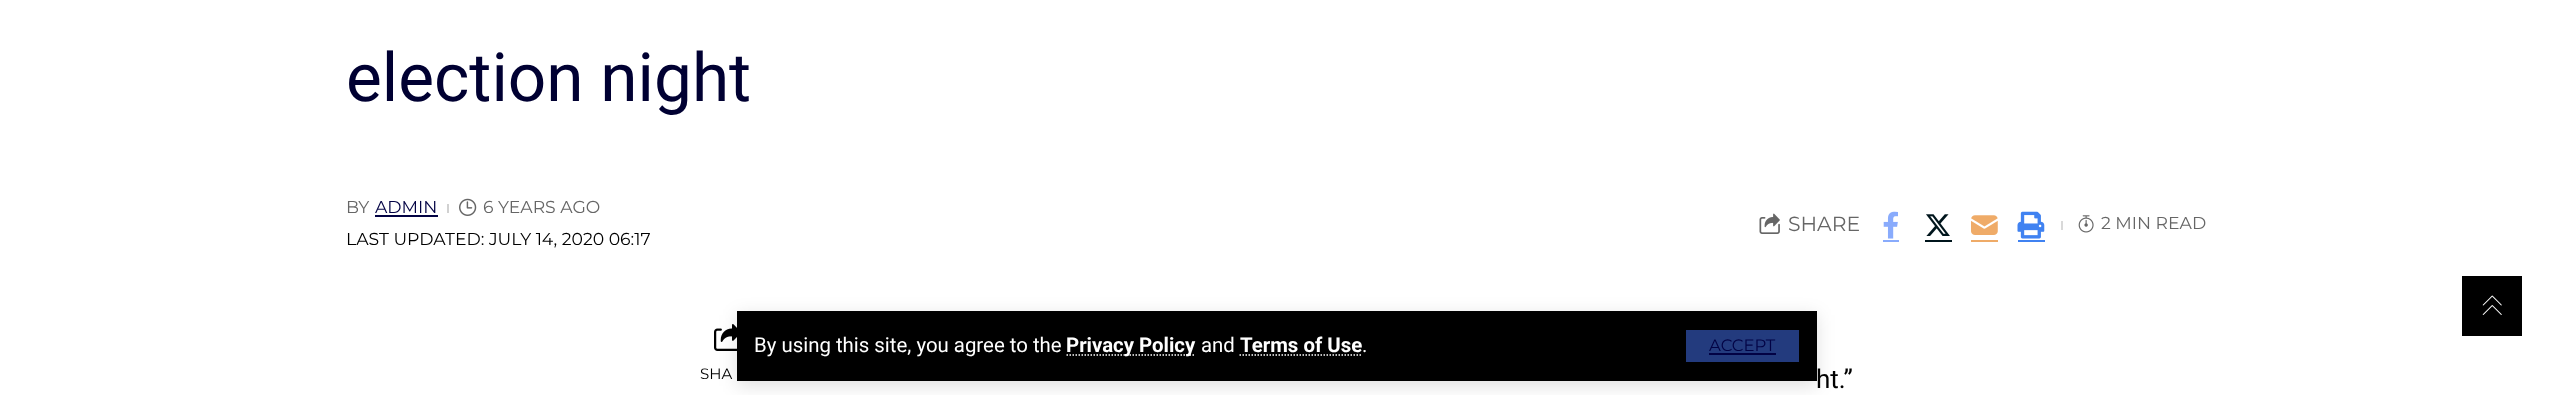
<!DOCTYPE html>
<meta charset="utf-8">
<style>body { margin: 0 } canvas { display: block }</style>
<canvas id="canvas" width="2551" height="395"></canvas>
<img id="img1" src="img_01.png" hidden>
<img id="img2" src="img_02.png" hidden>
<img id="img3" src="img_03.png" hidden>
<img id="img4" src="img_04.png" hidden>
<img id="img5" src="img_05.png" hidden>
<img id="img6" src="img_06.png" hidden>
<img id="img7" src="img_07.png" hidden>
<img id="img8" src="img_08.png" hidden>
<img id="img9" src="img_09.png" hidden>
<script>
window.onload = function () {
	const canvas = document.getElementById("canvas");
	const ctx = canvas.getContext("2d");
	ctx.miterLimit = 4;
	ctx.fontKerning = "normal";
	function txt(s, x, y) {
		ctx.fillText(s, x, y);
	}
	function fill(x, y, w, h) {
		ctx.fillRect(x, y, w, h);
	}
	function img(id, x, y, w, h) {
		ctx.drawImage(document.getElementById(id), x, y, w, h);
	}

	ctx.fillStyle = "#FFFFFF";
	fill(0, 0, 2551, 395);
	ctx.fillStyle = "#020244";
	fill(375, 215, 63, 2);
	ctx.fillStyle = "#D1D1D1";
	fill(447, 204, 2, 9);
	img("img1", 459, 198, 18, 18);
	img("img2", 1759, 213, 21, 21);
	img("img3", 1883, 211, 15, 28);
	ctx.fillStyle = "#89ABFC";
	fill(1883, 240, 16, 2);
	img("img4", 1926, 214, 24, 22);
	ctx.fillStyle = "#00151C";
	fill(1925, 240, 27, 2);
	img("img5", 1971, 215, 27, 20);
	ctx.fillStyle = "#EFAB68";
	fill(1971, 240, 27, 2);
	img("img6", 2017, 211, 28, 28);
	ctx.fillStyle = "#4082F1";
	fill(2018, 240, 27, 2);
	ctx.fillStyle = "#D9D9D9";
	fill(2061, 221, 2, 9);
	img("img7", 2078, 215, 16, 18);
	img("img8", 714, 324, 23, 27);
	ctx.fillStyle = "rgba(0, 0, 0, 0.12)";
	ctx.filter = "blur(9px)";
	ctx.beginPath();
	ctx.rect(737, 315, 1080, 71);
	ctx.fill();
	ctx.filter = "none";
	ctx.fillStyle = "#000000";
	fill(737, 311, 1080, 70);
	ctx.beginPath();
	ctx.moveTo(1066.5, 355);
	ctx.lineTo(1195.5, 355);
	ctx.strokeStyle = "#FFFFFF";
	ctx.lineWidth = 1.5;
	ctx.setLineDash([1.5, 1.5]);
	ctx.stroke();
	ctx.beginPath();
	ctx.moveTo(1239.5, 355);
	ctx.lineTo(1362, 355);
	ctx.stroke();
	ctx.fillStyle = "#233B7E";
	fill(1686, 330, 113, 32);
	ctx.fillStyle = "#020244";
	fill(1709, 353, 67, 2);
	ctx.fillStyle = "#000000";
	fill(2462, 276, 60, 60);
	img("img9", 2482, 295, 20, 20);
	ctx.font = "67.5px Roboto";
	ctx.fillStyle = "#000032";
	txt("election night", 346, 101);
	ctx.font = "17.25px Montserrat";
	ctx.fillStyle = "#666666";
	txt("BY", 346, 213);
	ctx.fillStyle = "#020244";
	txt("ADMIN", 375, 213);
	ctx.fillStyle = "#666666";
	txt("6 YEARS AGO", 483, 213);
	ctx.fillStyle = "#000000";
	txt("LAST UPDATED: JULY 14, 2020 06:17", 346, 245);
	ctx.font = "20.4px Montserrat";
	ctx.fillStyle = "#666666";
	txt("SHARE", 1788, 231);
	ctx.font = "17.25px Montserrat";
	txt("2 MIN READ", 2101, 229);
	ctx.font = "15px Montserrat";
	ctx.fillStyle = "#000000";
	txt("SHA", 700, 379);
	ctx.font = "26px Roboto";
	txt("ht.”", 1816, 388);
	ctx.font = "20.4px Roboto";
	ctx.fillStyle = "#FFFFFF";
	txt("By using this site, you agree to the", 754, 352);
	ctx.font = "bold 20.4px Roboto";
	txt("Privacy Policy", 1066, 352);
	ctx.font = "20.4px Roboto";
	txt("and", 1201, 352);
	ctx.font = "bold 20.4px Roboto";
	txt("Terms of Use", 1240, 352);
	ctx.font = "20.4px Roboto";
	txt(".", 1362, 352);
	ctx.font = "16.5px Montserrat";
	ctx.fillStyle = "#020244";
	txt("ACCEPT", 1709, 351);
};
</script>
